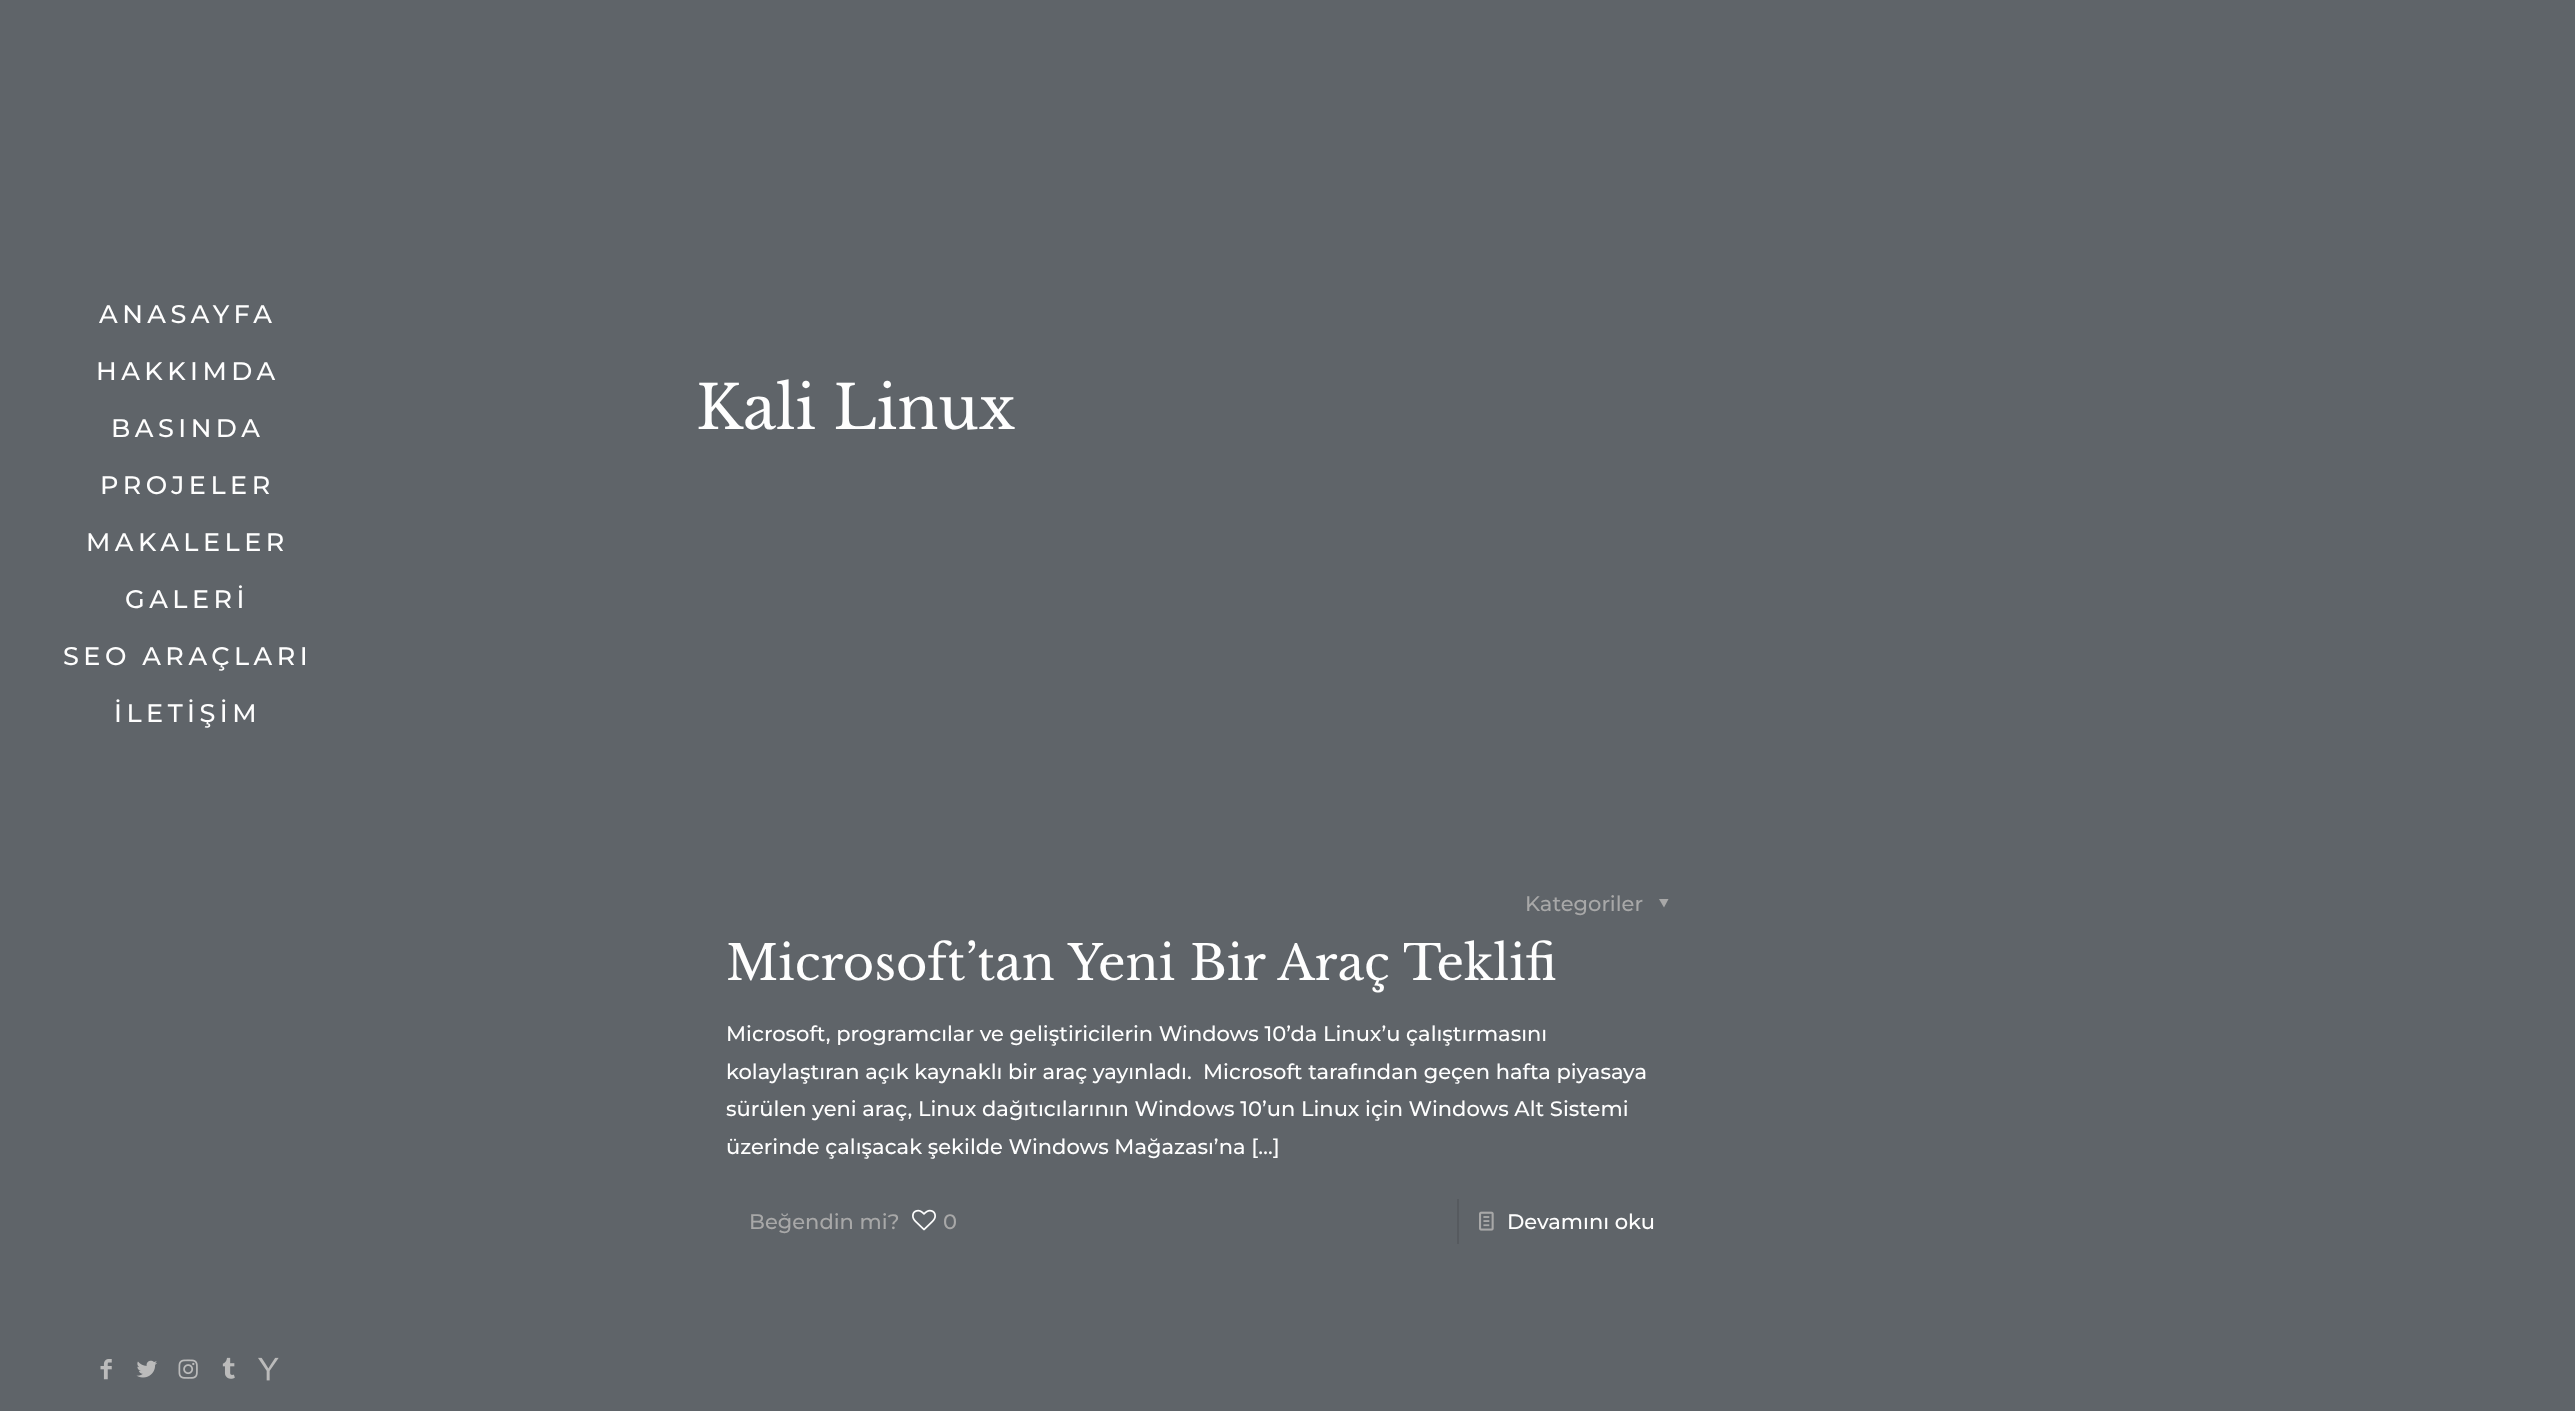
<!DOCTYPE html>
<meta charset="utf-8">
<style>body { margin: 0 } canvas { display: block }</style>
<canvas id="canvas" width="2575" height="1411"></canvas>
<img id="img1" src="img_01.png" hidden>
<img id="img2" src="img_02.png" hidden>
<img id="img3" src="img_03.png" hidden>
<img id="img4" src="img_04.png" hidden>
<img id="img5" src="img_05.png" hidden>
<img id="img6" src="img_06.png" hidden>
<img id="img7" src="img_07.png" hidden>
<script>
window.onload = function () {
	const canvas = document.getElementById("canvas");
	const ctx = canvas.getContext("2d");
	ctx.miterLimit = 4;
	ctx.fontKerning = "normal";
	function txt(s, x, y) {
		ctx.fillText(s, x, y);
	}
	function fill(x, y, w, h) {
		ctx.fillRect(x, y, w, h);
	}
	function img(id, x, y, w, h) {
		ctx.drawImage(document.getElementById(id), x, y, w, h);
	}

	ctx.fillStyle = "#5F6469";
	fill(0, 0, 2575, 1411);
	img("img1", 100, 1359, 12, 21);
	img("img2", 136, 1360, 21, 18);
	img("img3", 178, 1359, 20, 20);
	img("img4", 222, 1357, 13, 22);
	img("img5", 258, 1357, 21, 24);
	ctx.fillStyle = "#A8A8A8";
	ctx.beginPath();
	ctx.moveTo(1668.5, 899);
	ctx.lineTo(1664, 907.5);
	ctx.lineTo(1659, 899);
	ctx.closePath();
	ctx.fill();
	img("img6", 912, 1209, 24, 22);
	ctx.fillStyle = "#565A5F";
	fill(1457, 1199, 2, 45);
	img("img7", 1479, 1211, 15, 20);
	ctx.letterSpacing = "4.5px";
	ctx.font = "500 25.5px Montserrat";
	ctx.fillStyle = "#FEFEFE";
	txt("ANASAYFA", 99, 323);
	txt("HAKKIMDA", 96, 380);
	txt("BASINDA", 111, 437);
	txt("PROJELER", 100, 494);
	txt("MAKALELER", 86, 551);
	txt("GALERİ", 125, 608);
	txt("SEO ARAÇLARI", 63, 665);
	txt("İLETİŞİM", 114, 722);
	ctx.letterSpacing = "0px";
	ctx.font = "60px Libre Baskerville";
	txt("Kali Linux", 696, 429);
	ctx.font = "500 21px Montserrat";
	ctx.fillStyle = "#A8A8A8";
	txt("Kategoriler", 1525, 911);
	ctx.wordSpacing = "1px";
	ctx.font = "48px Libre Baskerville";
	ctx.fillStyle = "#FEFEFE";
	txt("Microsoft’tan Yeni Bir Araç Teklifi", 726, 980);
	ctx.wordSpacing = "0px";
	ctx.font = "500 21px Montserrat";
	txt("Microsoft, programcılar ve geliştiricilerin Windows 10’da Linux’u çalıştırmasını", 726, 1041);
	txt("kolaylaştıran açık kaynaklı bir araç yayınladı.  Microsoft tarafından geçen hafta piyasaya", 726, 1079);
	txt("sürülen yeni araç, Linux dağıtıcılarının Windows 10’un Linux için Windows Alt Sistemi", 726, 1116);
	txt("üzerinde çalışacak şekilde Windows Mağazası’na […]", 726, 1154);
	ctx.fillStyle = "#A8A8A8";
	txt("Beğendin mi?", 749, 1229);
	txt("0", 943, 1229);
	ctx.fillStyle = "#FEFEFE";
	txt("Devamını oku", 1507, 1229);
};
</script>
